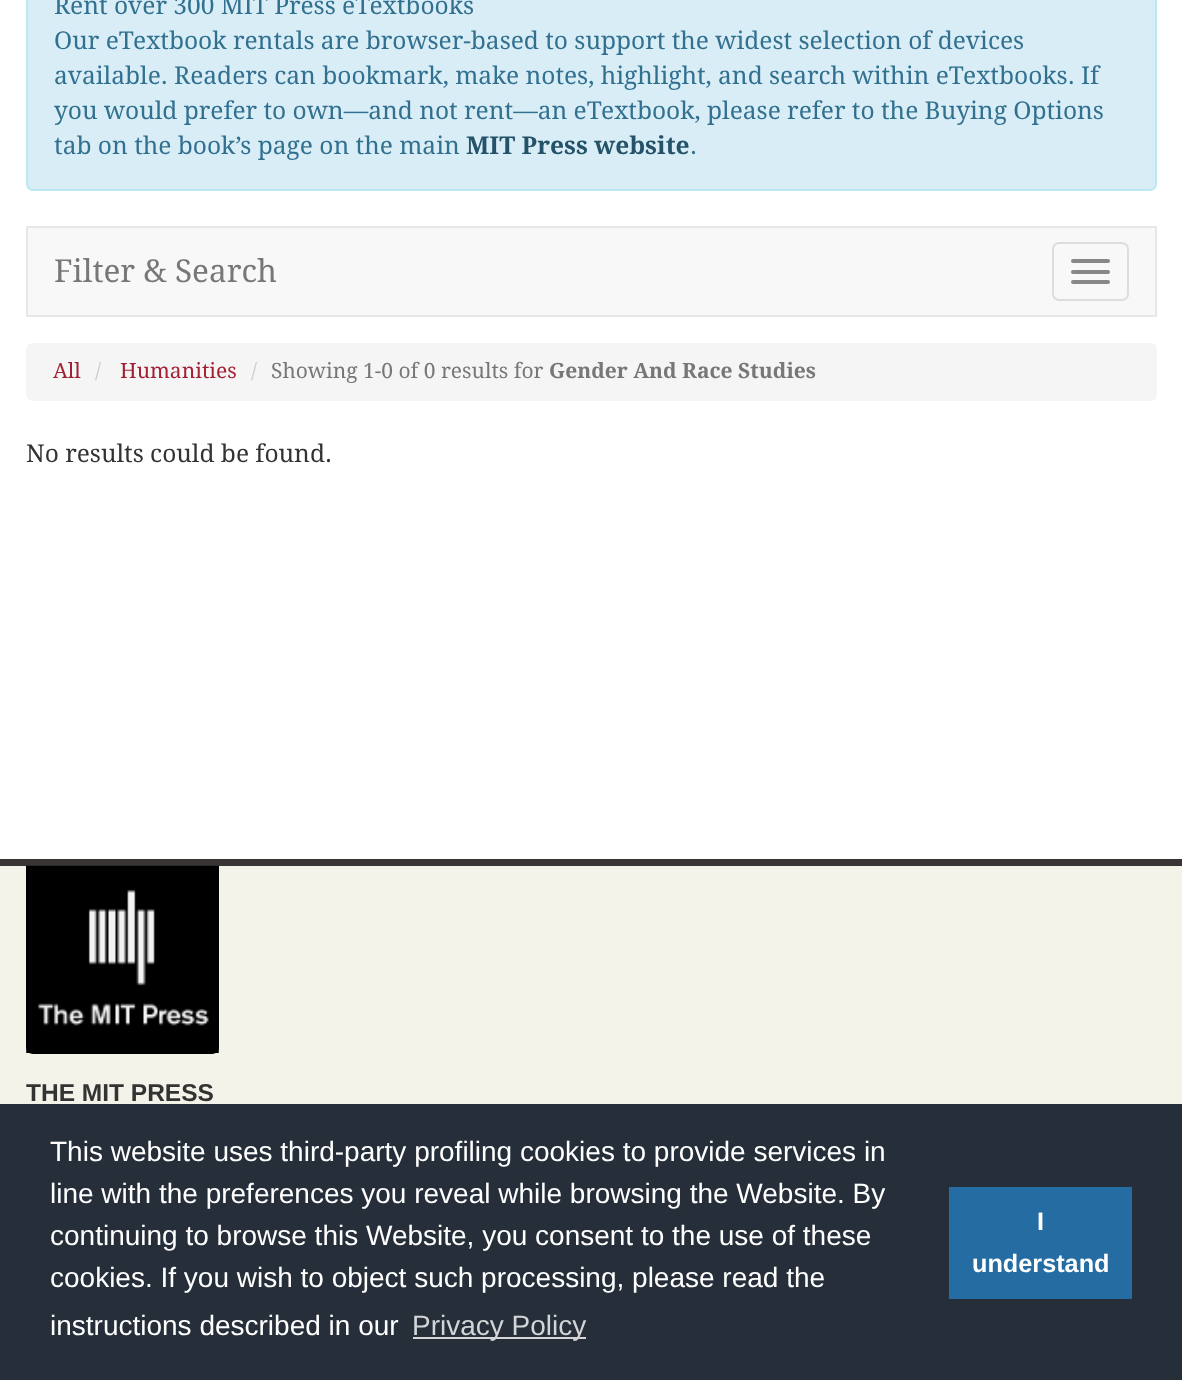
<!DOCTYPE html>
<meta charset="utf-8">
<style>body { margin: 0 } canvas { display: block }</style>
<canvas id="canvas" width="1182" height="1380"></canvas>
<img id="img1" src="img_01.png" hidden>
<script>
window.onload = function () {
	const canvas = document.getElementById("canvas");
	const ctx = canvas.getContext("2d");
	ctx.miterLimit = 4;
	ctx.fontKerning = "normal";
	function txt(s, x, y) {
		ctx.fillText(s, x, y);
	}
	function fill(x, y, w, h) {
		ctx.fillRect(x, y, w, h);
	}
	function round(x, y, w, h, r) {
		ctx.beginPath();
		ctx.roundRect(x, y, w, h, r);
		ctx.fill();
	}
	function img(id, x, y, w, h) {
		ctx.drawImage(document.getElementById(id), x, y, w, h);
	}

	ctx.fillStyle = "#FFFFFF";
	fill(0, 0, 1182, 1380);
	ctx.fillStyle = "#D9EDF7";
	ctx.beginPath();
	ctx.roundRect(27, -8, 1129, 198, 6);
	ctx.fill();
	ctx.strokeStyle = "#BCE8F1";
	ctx.lineWidth = 2;
	ctx.stroke();
	ctx.fillStyle = "#F8F8F8";
	ctx.beginPath();
	ctx.rect(27, 227, 1129, 89);
	ctx.fill();
	ctx.strokeStyle = "#E7E7E7";
	ctx.stroke();
	ctx.beginPath();
	ctx.roundRect(1053, 243, 75, 57, 6);
	ctx.strokeStyle = "#DDDDDD";
	ctx.stroke();
	ctx.fillStyle = "#888888";
	round(1071, 259, 39, 4, 2);
	round(1071, 270, 39, 4, 2);
	round(1071, 280, 39, 4, 2);
	ctx.fillStyle = "#F5F5F5";
	round(26, 343, 1131, 58, 7);
	ctx.fillStyle = "#F3F3E9";
	fill(0, 866, 1182, 238);
	ctx.fillStyle = "#393534";
	fill(0, 859, 1182, 7);
	ctx.fillStyle = "#000000";
	ctx.beginPath();
	ctx.roundRect(26, 866, 193, 188, [0, 0, 7, 7]);
	ctx.fill();
	img("img1", 26, 865, 193, 188);
	ctx.fillStyle = "#252E39";
	fill(0, 1104, 1182, 276);
	ctx.fillStyle = "#D3D5D7";
	fill(413, 1337, 173, 2);
	ctx.fillStyle = "#256CA3";
	fill(949, 1187, 183, 112);
	ctx.font = "24.5px Droid Serif";
	ctx.fillStyle = "#31708F";
	txt("Rent over 300 MIT Press eTextbooks", 54, 14);
	txt("Our eTextbook rentals are browser-based to support the widest selection of devices", 54, 49);
	txt("available. Readers can bookmark, make notes, highlight, and search within eTextbooks. If", 54, 84);
	txt("you would prefer to own—and not rent—an eTextbook, please refer to the Buying Options", 54, 119);
	txt("tab on the book’s page on the main", 54, 154);
	ctx.font = "bold 24.5px Droid Serif";
	ctx.fillStyle = "#245269";
	txt("MIT Press website", 466, 154);
	ctx.font = "24.5px Droid Serif";
	ctx.fillStyle = "#31708F";
	txt(".", 690, 154);
	ctx.font = "31.5px Droid Serif";
	ctx.fillStyle = "#777777";
	txt("Filter & Search", 54, 282);
	ctx.font = "21px Droid Serif";
	ctx.fillStyle = "#A31F34";
	txt("All", 53, 378);
	ctx.fillStyle = "#CCCCCC";
	txt("/", 95, 378);
	ctx.fillStyle = "#A31F34";
	txt("Humanities", 120, 378);
	ctx.fillStyle = "#CCCCCC";
	txt("/", 251, 378);
	ctx.fillStyle = "#777777";
	txt("Showing 1-0 of 0 results for", 271, 378);
	ctx.font = "bold 21px Droid Serif";
	txt("Gender And Race Studies", 549, 378);
	ctx.font = "24.5px Droid Serif";
	ctx.fillStyle = "#333333";
	txt("No results could be found.", 26, 462);
	ctx.font = "bold 24.5px Liberation Sans";
	txt("THE MIT PRESS", 26, 1101);
	ctx.font = "28px Liberation Sans";
	ctx.fillStyle = "#FFFFFF";
	txt("This website uses third-party profiling cookies to provide services in", 50, 1161);
	txt("line with the preferences you reveal while browsing the Website. By", 50, 1203);
	txt("continuing to browse this Website, you consent to the use of these", 50, 1245);
	txt("cookies. If you wish to object such processing, please read the", 50, 1287);
	txt("instructions described in our", 50, 1335);
	ctx.fillStyle = "#D3D5D7";
	txt("Privacy Policy", 412, 1335);
	ctx.font = "bold 25.25px Liberation Sans";
	ctx.fillStyle = "#FFFFFF";
	txt("I", 1037, 1230);
	txt("understand", 972, 1272);
};
</script>
